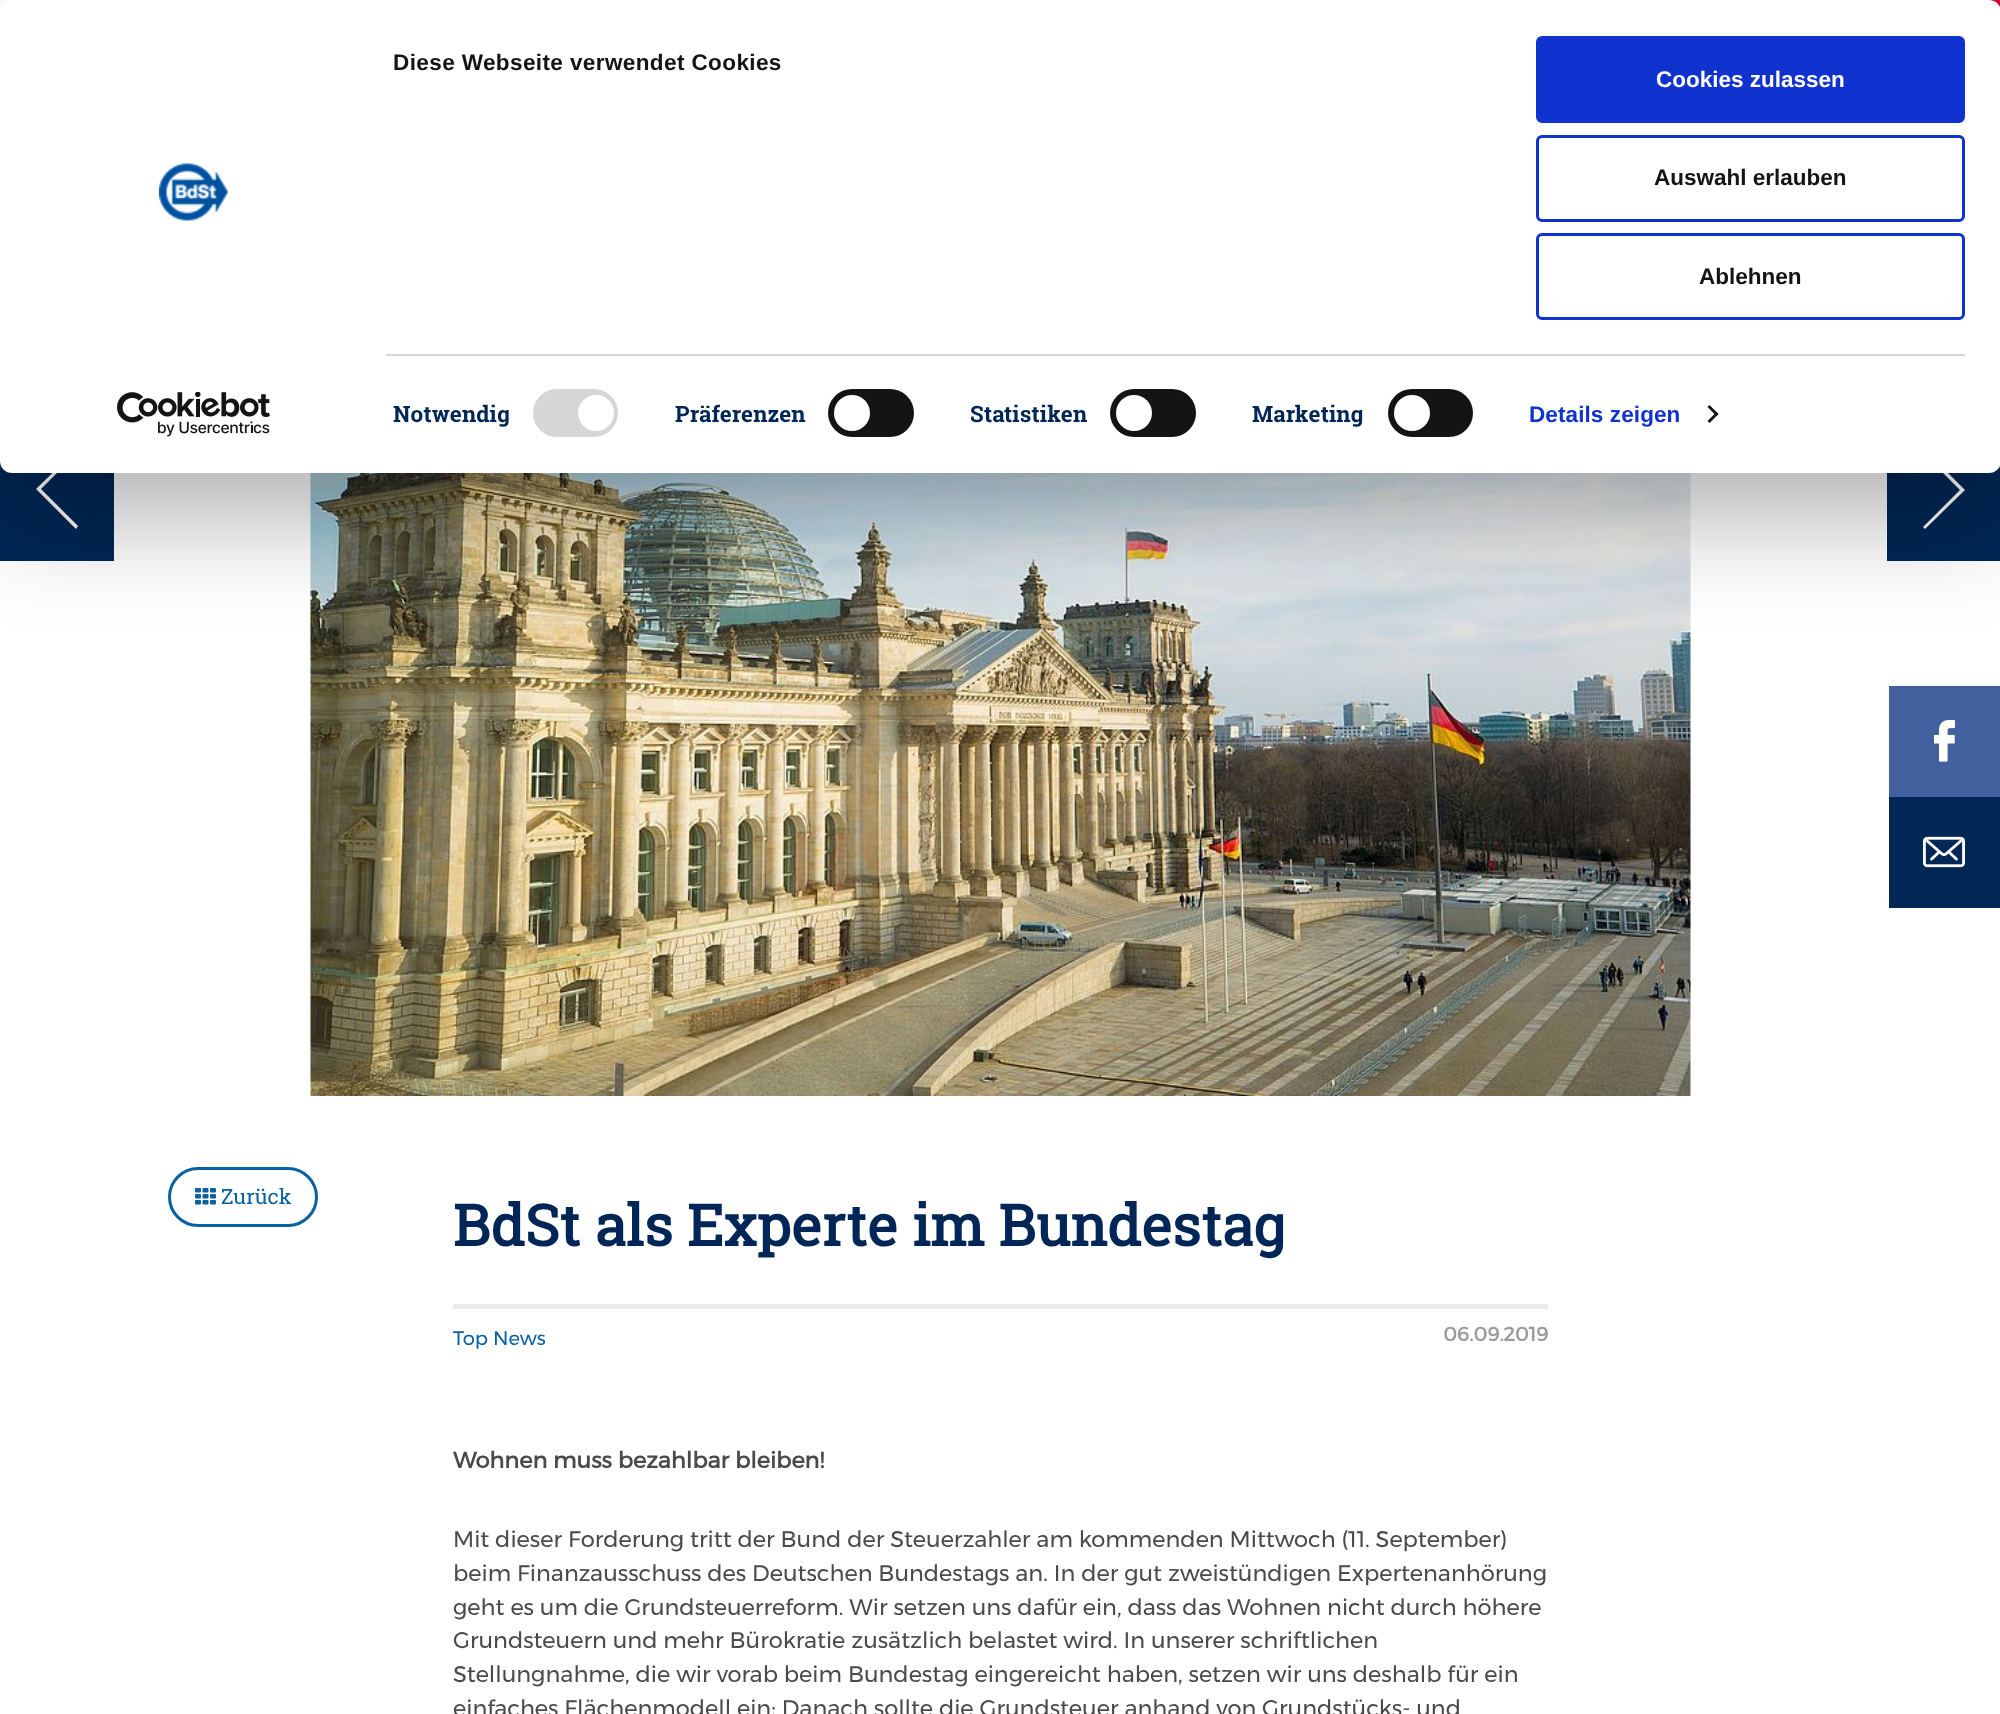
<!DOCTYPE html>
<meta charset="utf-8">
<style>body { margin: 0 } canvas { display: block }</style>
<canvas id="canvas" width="2000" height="1714"></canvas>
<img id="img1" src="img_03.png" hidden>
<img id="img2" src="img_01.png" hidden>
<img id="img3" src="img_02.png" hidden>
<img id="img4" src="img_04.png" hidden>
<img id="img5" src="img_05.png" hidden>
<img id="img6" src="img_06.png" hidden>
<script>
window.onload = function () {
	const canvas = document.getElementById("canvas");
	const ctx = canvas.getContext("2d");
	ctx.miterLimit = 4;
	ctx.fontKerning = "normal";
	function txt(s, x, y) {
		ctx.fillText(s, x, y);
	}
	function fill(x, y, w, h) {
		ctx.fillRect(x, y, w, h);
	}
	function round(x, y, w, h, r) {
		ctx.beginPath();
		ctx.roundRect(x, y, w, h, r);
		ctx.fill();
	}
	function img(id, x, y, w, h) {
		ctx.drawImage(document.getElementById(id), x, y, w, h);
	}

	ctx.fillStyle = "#FFFFFF";
	fill(0, 0, 2000, 1714);
	ctx.fillStyle = "#D7003A";
	fill(1989, 0, 11, 8);
	ctx.fillStyle = "#012756";
	fill(0, 461, 114, 100);
	ctx.fillStyle = "#FFFFFF";
	ctx.beginPath();
	ctx.moveTo(76, 450);
	ctx.lineTo(78, 452);
	ctx.lineTo(41, 489);
	ctx.lineTo(78, 526);
	ctx.lineTo(76, 529);
	ctx.lineTo(36, 489);
	ctx.closePath();
	ctx.fill();
	ctx.fillStyle = "#012756";
	fill(1887, 465, 113, 96);
	ctx.fillStyle = "#FFFFFF";
	ctx.beginPath();
	ctx.moveTo(1925, 529);
	ctx.lineTo(1923, 527);
	ctx.lineTo(1960, 490);
	ctx.lineTo(1923, 453);
	ctx.lineTo(1925, 450);
	ctx.lineTo(1965, 490);
	ctx.closePath();
	ctx.fill();
	img("img1", 310, 473, 1381, 623);
	ctx.fillStyle = "rgba(0, 0, 0, 0.3)";
	ctx.filter = "blur(52.5px)";
	ctx.beginPath();
	ctx.roundRect(0, 45, 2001, 473, 12);
	ctx.fill();
	ctx.filter = "none";
	ctx.fillStyle = "#FFFFFF";
	round(0, 0, 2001, 473, 12);
	img("img2", 159, 163, 69, 58);
	img("img3", 117, 392, 153, 45);
	ctx.fillStyle = "#D6D6D6";
	fill(386, 354, 1579, 2);
	round(533, 389, 85, 48, 24);
	ctx.fillStyle = "#FFFFFF";
	ctx.beginPath();
	ctx.arc(596, 413, 18, 0, Math.PI * 2);
	ctx.fill();
	ctx.fillStyle = "#141414";
	round(828, 389, 86, 48, 24);
	ctx.fillStyle = "#FFFFFF";
	ctx.beginPath();
	ctx.arc(852, 413, 18, 0, Math.PI * 2);
	ctx.fill();
	ctx.fillStyle = "#141414";
	round(1110, 389, 86, 48, 24);
	ctx.fillStyle = "#FFFFFF";
	ctx.beginPath();
	ctx.arc(1134, 413, 18, 0, Math.PI * 2);
	ctx.fill();
	ctx.fillStyle = "#141414";
	round(1388, 389, 85, 48, 24);
	ctx.fillStyle = "#FFFFFF";
	ctx.beginPath();
	ctx.arc(1412, 413, 18, 0, Math.PI * 2);
	ctx.fill();
	ctx.fillStyle = "#141414";
	ctx.beginPath();
	ctx.moveTo(1709.5, 405);
	ctx.lineTo(1718.5, 414);
	ctx.lineTo(1716.5, 416);
	ctx.lineTo(1707.5, 407);
	ctx.closePath();
	ctx.fill();
	ctx.beginPath();
	ctx.moveTo(1716.5, 412);
	ctx.lineTo(1718.5, 414);
	ctx.lineTo(1709.5, 423);
	ctx.lineTo(1707.5, 421);
	ctx.closePath();
	ctx.fill();
	ctx.fillStyle = "#1032CF";
	ctx.beginPath();
	ctx.roundRect(1537.5, 37.5, 426, 84, 4.5);
	ctx.fill();
	ctx.strokeStyle = "#1032CF";
	ctx.lineWidth = 3;
	ctx.stroke();
	ctx.beginPath();
	ctx.roundRect(1537.5, 136.5, 426, 84, 4.5);
	ctx.stroke();
	ctx.beginPath();
	ctx.roundRect(1537.5, 234.5, 426, 84, 4.5);
	ctx.stroke();
	ctx.beginPath();
	ctx.roundRect(169.5, 1168.5, 147, 57, 28.5);
	ctx.strokeStyle = "#0960A2";
	ctx.stroke();
	img("img4", 195, 1188, 21, 17);
	ctx.fillStyle = "#42609E";
	fill(1889, 686, 111, 111);
	img("img5", 1934, 720, 21, 42);
	ctx.fillStyle = "#012756";
	fill(1889, 797, 111, 111);
	img("img6", 1923, 836, 42, 32);
	ctx.fillStyle = "#EBEBEB";
	fill(453, 1304, 1095, 5);
	ctx.letterSpacing = "0.4px";
	ctx.font = "bold 22.5px Liberation Sans";
	ctx.fillStyle = "#141414";
	txt("Diese Webseite verwendet Cookies", 393, 70);
	ctx.letterSpacing = "0.1px";
	ctx.font = "bold 22.5px 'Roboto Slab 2'";
	ctx.fillStyle = "#002657";
	txt("Notwendig", 393, 422);
	txt("Präferenzen", 675, 422);
	txt("Statistiken", 970, 422);
	txt("Marketing", 1252, 422);
	ctx.font = "bold 22.5px Liberation Sans";
	ctx.fillStyle = "#1032CF";
	txt("Details zeigen", 1529, 422);
	ctx.letterSpacing = "0px";
	ctx.fillStyle = "#FFFFFF";
	txt("Cookies zulassen", 1656, 87);
	ctx.fillStyle = "#141414";
	txt("Auswahl erlauben", 1654, 185);
	txt("Ablehnen", 1699, 284);
	ctx.font = "21px Roboto Slab";
	ctx.fillStyle = "#0960A2";
	txt("Zurück", 221, 1204);
	ctx.font = "bold 57px Roboto Slab";
	ctx.fillStyle = "#002657";
	txt("BdSt als Experte im Bundestag", 453, 1246);
	ctx.font = "19.5px Montserrat";
	ctx.fillStyle = "#0960A2";
	txt("Top News", 453, 1345);
	ctx.font = "bold 19.5px Montserrat";
	ctx.fillStyle = "#9B9B9B";
	txt("06.09.2019", 1443, 1341);
	ctx.font = "bold 22.5px Montserrat";
	ctx.fillStyle = "#4A4A4A";
	txt("Wohnen muss bezahlbar bleiben!", 453, 1468);
	ctx.font = "22.5px Montserrat";
	txt("Mit dieser Forderung tritt der Bund der Steuerzahler am kommenden Mittwoch (11. September)", 453, 1547);
	txt("beim Finanzausschuss des Deutschen Bundestags an. In der gut zweistündigen Expertenanhörung", 453, 1581);
	txt("geht es um die Grundsteuerreform. Wir setzen uns dafür ein, dass das Wohnen nicht durch höhere", 453, 1615);
	txt("Grundsteuern und mehr Bürokratie zusätzlich belastet wird. In unserer schriftlichen", 453, 1648);
	txt("Stellungnahme, die wir vorab beim Bundestag eingereicht haben, setzen wir uns deshalb für ein", 453, 1682);
	txt("einfaches Flächenmodell ein: Danach sollte die Grundsteuer anhand von Grundstücks- und", 453, 1716);
};
</script>
